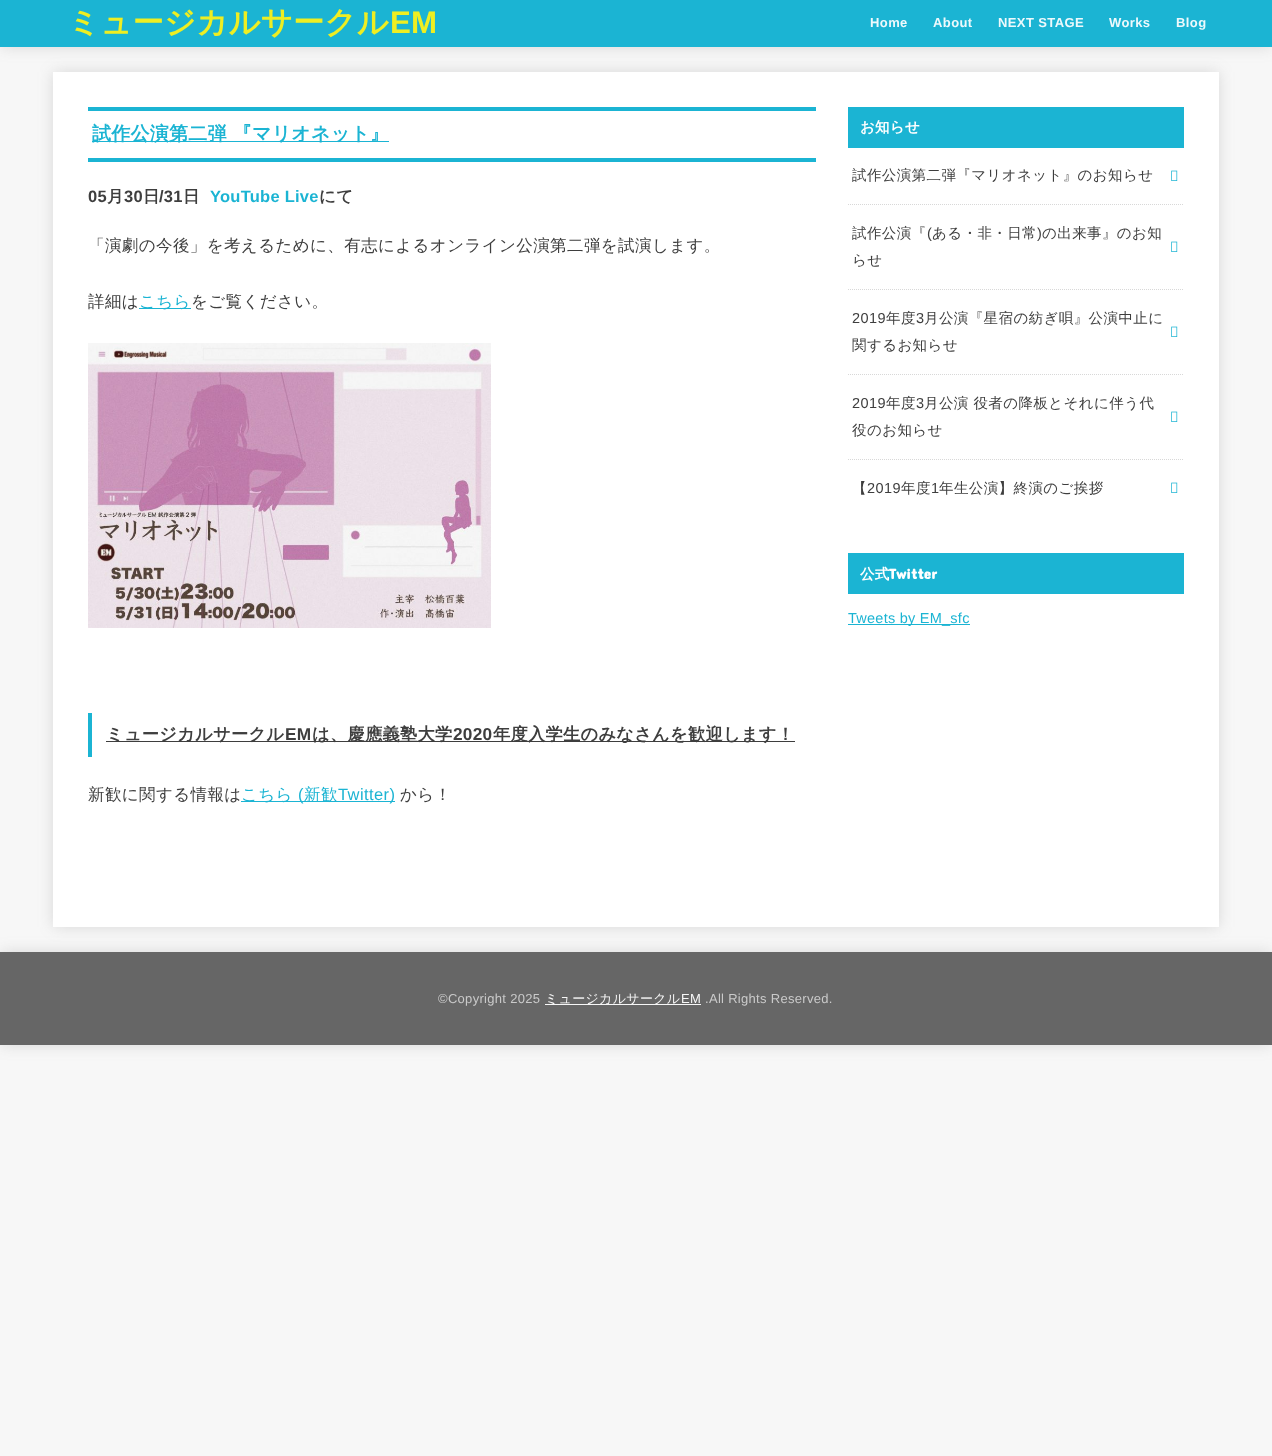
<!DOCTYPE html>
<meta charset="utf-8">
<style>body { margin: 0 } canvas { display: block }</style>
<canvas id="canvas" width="1272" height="1456"></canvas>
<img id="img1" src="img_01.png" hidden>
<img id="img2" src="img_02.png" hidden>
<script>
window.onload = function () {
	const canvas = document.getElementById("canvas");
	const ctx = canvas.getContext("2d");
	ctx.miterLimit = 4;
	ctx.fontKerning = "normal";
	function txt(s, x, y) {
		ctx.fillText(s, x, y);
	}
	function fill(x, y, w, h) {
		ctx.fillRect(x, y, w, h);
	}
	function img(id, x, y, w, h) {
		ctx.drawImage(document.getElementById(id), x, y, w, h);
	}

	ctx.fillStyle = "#F7F7F7";
	fill(0, 0, 1272, 1456);
	ctx.fillStyle = "rgba(102, 102, 102, 0.2)";
	ctx.filter = "blur(7.5px)";
	ctx.beginPath();
	ctx.rect(0, 0, 1272, 47);
	ctx.fill();
	ctx.filter = "none";
	ctx.fillStyle = "#1BB4D3";
	fill(0, 0, 1272, 47);
	ctx.fillStyle = "rgba(102, 102, 102, 0.2)";
	ctx.filter = "blur(7.5px)";
	ctx.beginPath();
	ctx.rect(53, 72, 1166, 855);
	ctx.fill();
	ctx.filter = "none";
	ctx.fillStyle = "#FFFFFF";
	fill(53, 72, 1166, 855);
	ctx.fillStyle = "#1BB4D3";
	fill(88, 107, 728, 4);
	fill(88, 158, 728, 4);
	fill(92, 141, 297, 1);
	fill(139, 308, 52, 1);
	img("img1", 88, 343, 403, 285);
	fill(88, 713, 4, 44);
	ctx.fillStyle = "#3E3E3E";
	fill(106, 741, 689, 1);
	ctx.fillStyle = "#1BB4D3";
	fill(241, 801, 154, 1);
	fill(848, 107, 336, 41);
	ctx.beginPath();
	ctx.moveTo(848, 204.5);
	ctx.lineTo(1184, 204.5);
	ctx.strokeStyle = "#D8D8D8";
	ctx.setLineDash([1, 1]);
	ctx.stroke();
	img("img2", 1171, 170, 7, 11);
	ctx.beginPath();
	ctx.moveTo(848, 289.5);
	ctx.lineTo(1184, 289.5);
	ctx.stroke();
	img("img2", 1171, 241, 7, 11);
	ctx.beginPath();
	ctx.moveTo(848, 374.5);
	ctx.lineTo(1184, 374.5);
	ctx.stroke();
	img("img2", 1171, 326, 7, 11);
	ctx.beginPath();
	ctx.moveTo(848, 459.5);
	ctx.lineTo(1184, 459.5);
	ctx.stroke();
	img("img2", 1171, 411, 7, 11);
	img("img2", 1171, 482, 7, 11);
	fill(848, 553, 336, 41);
	fill(848, 624, 122, 1);
	ctx.fillStyle = "rgba(102, 102, 102, 0.2)";
	ctx.filter = "blur(7.5px)";
	ctx.beginPath();
	ctx.rect(0, 952, 1272, 93);
	ctx.fill();
	ctx.filter = "none";
	ctx.fillStyle = "#666666";
	fill(0, 952, 1272, 93);
	ctx.fillStyle = "#F7F7F7";
	fill(545, 1004, 156, 1);
	ctx.letterSpacing = "0.25px";
	ctx.font = "bold 31.25px WenQuanYi Zen Hei";
	ctx.fillStyle = "#EEEE22";
	txt("ミュージカルサークル", 68, 33);
	ctx.font = "bold 31.25px Liberation Sans";
	txt("EM", 390, 33);
	ctx.letterSpacing = "0.4px";
	ctx.font = "bold 13px Liberation Sans";
	ctx.fillStyle = "#EDF9FC";
	txt("Home", 870, 27);
	txt("About", 933, 27);
	txt("NEXT STAGE", 998, 27);
	txt("Works", 1109, 27);
	txt("Blog", 1176, 27);
	ctx.letterSpacing = "0.25px";
	ctx.font = "bold 19px WenQuanYi Zen Hei";
	ctx.fillStyle = "#1BB4D3";
	txt("試作公演第二弾 『マリオネット』", 92, 140);
	ctx.font = "bold 16.5px Liberation Sans";
	ctx.fillStyle = "#3E3E3E";
	txt("05", 88, 202);
	ctx.font = "bold 16.5px WenQuanYi Zen Hei";
	txt("月", 107, 202);
	ctx.font = "bold 16.5px Liberation Sans";
	txt("30", 124, 202);
	ctx.font = "bold 16.5px WenQuanYi Zen Hei";
	txt("日", 143, 202);
	ctx.font = "bold 16.5px Liberation Sans";
	txt("/31", 159, 202);
	ctx.font = "bold 16.5px WenQuanYi Zen Hei";
	txt("日", 183, 202);
	ctx.font = "bold 16.5px Liberation Sans";
	ctx.fillStyle = "#1BB4D3";
	txt("YouTube Live", 210, 202);
	ctx.font = "bold 16.5px WenQuanYi Zen Hei";
	ctx.fillStyle = "#3E3E3E";
	txt("にて", 319, 202);
	ctx.letterSpacing = "0.4px";
	ctx.font = "500 16.5px WenQuanYi Zen Hei";
	txt("「演劇の今後」を考えるために、有志によるオンライン公演第二弾を試演します。", 88, 251);
	txt("詳細は", 88, 307);
	ctx.fillStyle = "#1BB4D3";
	txt("こちら", 139, 307);
	ctx.fillStyle = "#3E3E3E";
	txt("をご覧ください。", 191, 307);
	ctx.letterSpacing = "0.25px";
	ctx.font = "bold 17.25px WenQuanYi Zen Hei";
	txt("ミュージカルサークル", 106, 740);
	ctx.font = "bold 17.25px Liberation Sans";
	txt("EM", 285, 740);
	ctx.font = "bold 17.25px WenQuanYi Zen Hei";
	txt("は、慶應義塾大学", 312, 740);
	ctx.font = "bold 17.25px Liberation Sans";
	txt("2020", 453, 740);
	ctx.font = "bold 17.25px WenQuanYi Zen Hei";
	txt("年度入学生のみなさんを歓迎します！", 493, 740);
	ctx.letterSpacing = "0.4px";
	ctx.font = "500 16.5px WenQuanYi Zen Hei";
	txt("新歓に関する情報は", 88, 800);
	ctx.fillStyle = "#1BB4D3";
	txt("こちら", 241, 800);
	ctx.font = "16.5px Liberation Sans";
	txt("(", 298, 800);
	ctx.font = "500 16.5px WenQuanYi Zen Hei";
	txt("新歓", 304, 800);
	ctx.font = "16.5px Liberation Sans";
	txt("Twitter)", 338, 800);
	ctx.font = "500 16.5px WenQuanYi Zen Hei";
	ctx.fillStyle = "#3E3E3E";
	txt("から！", 400, 800);
	ctx.letterSpacing = "0.25px";
	ctx.font = "bold 14.5px WenQuanYi Zen Hei";
	ctx.fillStyle = "#FFFFFF";
	txt("お知らせ", 860, 132);
	ctx.letterSpacing = "0.4px";
	ctx.font = "500 14.5px WenQuanYi Zen Hei";
	ctx.fillStyle = "#3E3E3E";
	txt("試作公演第二弾『マリオネット』のお知らせ", 852, 180);
	txt("試作公演『", 852, 238);
	ctx.font = "14.5px Liberation Sans";
	txt("(", 927, 238);
	ctx.font = "500 14.5px WenQuanYi Zen Hei";
	txt("ある・非・日常", 932, 238);
	ctx.font = "14.5px Liberation Sans";
	txt(")", 1037, 238);
	ctx.font = "500 14.5px WenQuanYi Zen Hei";
	txt("の出来事』のお知", 1042, 238);
	txt("らせ", 852, 265);
	ctx.font = "14.5px Liberation Sans";
	txt("2019", 852, 323);
	ctx.font = "500 14.5px WenQuanYi Zen Hei";
	txt("年度", 886, 323);
	ctx.font = "14.5px Liberation Sans";
	txt("3", 916, 323);
	ctx.font = "500 14.5px WenQuanYi Zen Hei";
	txt("月公演『星宿の紡ぎ唄』公演中止に", 924, 323);
	txt("関するお知らせ", 852, 350);
	ctx.font = "14.5px Liberation Sans";
	txt("2019", 852, 408);
	ctx.font = "500 14.5px WenQuanYi Zen Hei";
	txt("年度", 886, 408);
	ctx.font = "14.5px Liberation Sans";
	txt("3", 916, 408);
	ctx.font = "500 14.5px WenQuanYi Zen Hei";
	txt("月公演 役者の降板とそれに伴う代", 924, 408);
	txt("役のお知らせ", 852, 435);
	txt("【", 852, 493);
	ctx.font = "14.5px Liberation Sans";
	txt("2019", 867, 493);
	ctx.font = "500 14.5px WenQuanYi Zen Hei";
	txt("年度", 901, 493);
	ctx.font = "14.5px Liberation Sans";
	txt("1", 931, 493);
	ctx.font = "500 14.5px WenQuanYi Zen Hei";
	txt("年生公演】終演のご挨拶", 939, 493);
	ctx.letterSpacing = "0.25px";
	ctx.font = "bold 14.5px WenQuanYi Zen Hei";
	ctx.fillStyle = "#FFFFFF";
	txt("公式", 860, 579);
	ctx.font = "bold 14.5px Concert One";
	txt("Twitter", 889, 579);
	ctx.font = "14.5px Liberation Sans";
	ctx.fillStyle = "#1BB4D3";
	txt("Tweets by EM_sfc", 848, 623);
	ctx.letterSpacing = "0.3px";
	ctx.font = "13px Liberation Sans";
	ctx.fillStyle = "#CACACA";
	txt("©Copyright 2025", 438, 1003);
	ctx.font = "500 13px WenQuanYi Zen Hei";
	ctx.fillStyle = "#F7F7F7";
	txt("ミュージカルサークル", 545, 1003);
	ctx.font = "13px Liberation Sans";
	txt("EM", 681, 1003);
	ctx.fillStyle = "#CACACA";
	txt(".All Rights Reserved.", 705, 1003);
};
</script>
